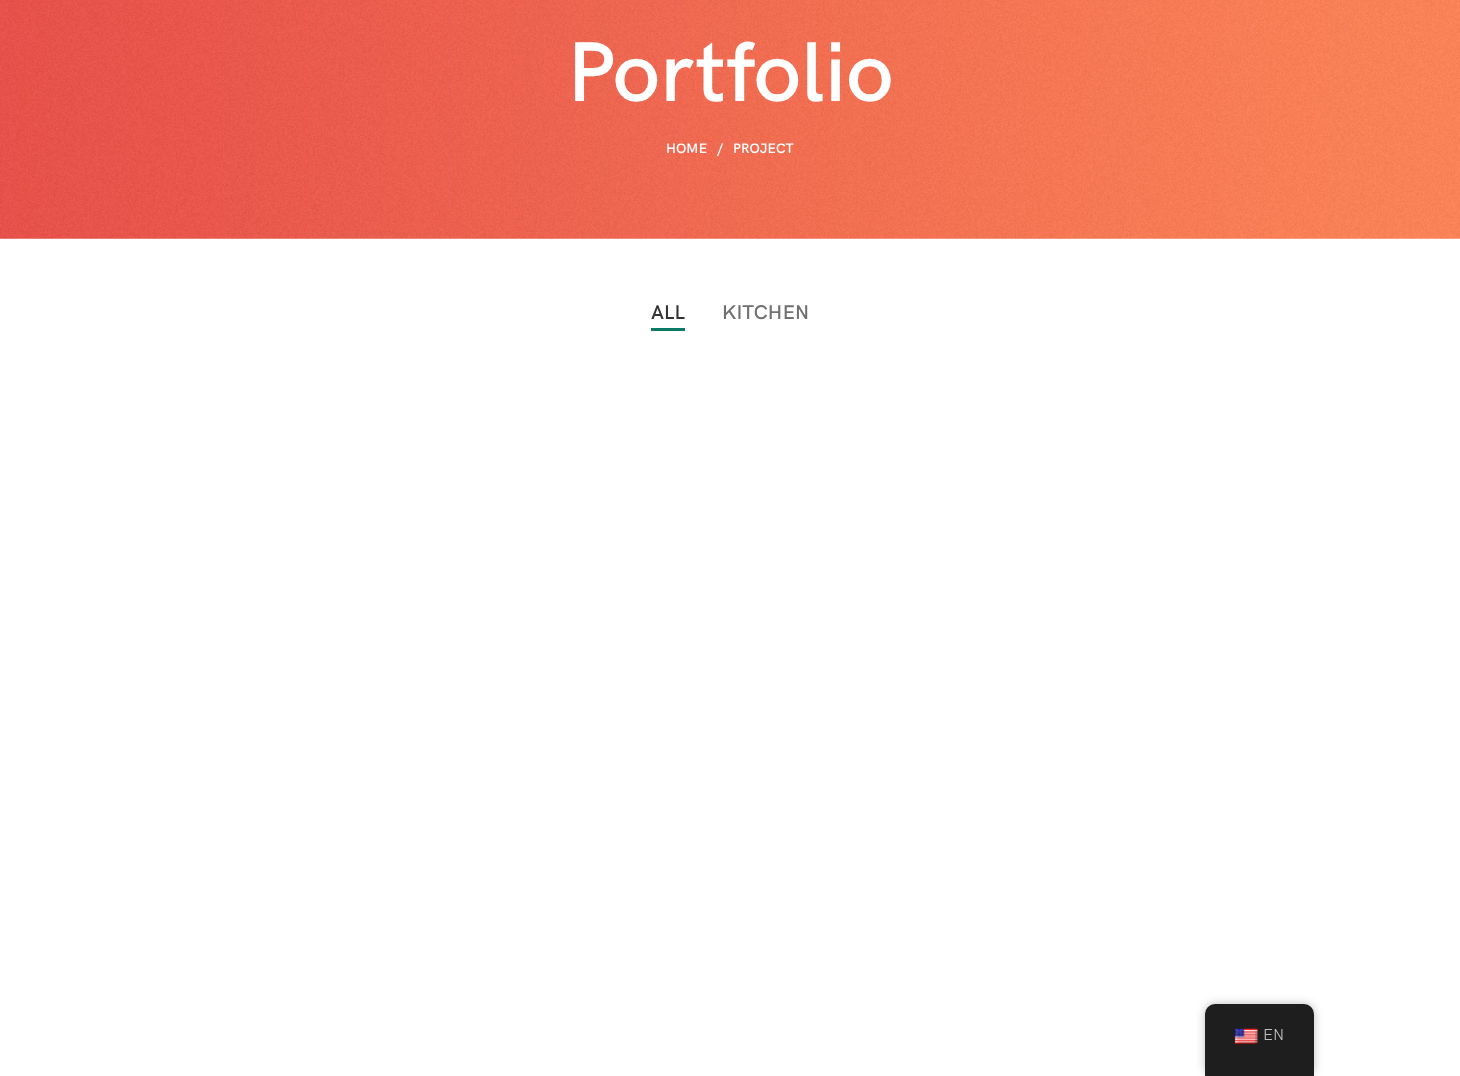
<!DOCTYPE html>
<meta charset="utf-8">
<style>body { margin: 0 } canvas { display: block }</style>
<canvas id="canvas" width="1460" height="1076"></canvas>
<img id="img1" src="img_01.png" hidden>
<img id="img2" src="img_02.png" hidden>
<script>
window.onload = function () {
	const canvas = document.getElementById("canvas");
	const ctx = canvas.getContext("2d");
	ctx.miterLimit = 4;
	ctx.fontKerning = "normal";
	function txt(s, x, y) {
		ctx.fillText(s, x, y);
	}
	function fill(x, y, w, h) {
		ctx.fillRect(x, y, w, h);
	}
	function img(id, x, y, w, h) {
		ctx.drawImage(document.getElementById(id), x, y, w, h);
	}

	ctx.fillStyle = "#FFFFFF";
	fill(0, 0, 1460, 1076);
	img("img1", 0, 0, 1460, 239);
	ctx.fillStyle = "#0B7B68";
	fill(651, 328, 34, 3);
	ctx.fillStyle = "rgba(0, 0, 0, 0.25)";
	ctx.filter = "blur(5px)";
	ctx.beginPath();
	ctx.roundRect(1205, 1004, 109, 72, 10);
	ctx.fill();
	ctx.filter = "none";
	ctx.fillStyle = "#1E1E1E";
	ctx.beginPath();
	ctx.roundRect(1205, 1004, 109, 72, [10, 10, 0, 0]);
	ctx.fill();
	img("img2", 1234, 1028, 24, 16);
	ctx.font = "600 85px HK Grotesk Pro";
	ctx.fillStyle = "#FFFFFF";
	txt("Portfolio", 567, 101);
	ctx.font = "600 13.75px HK Grotesk Pro";
	txt("HOME", 666, 153);
	txt("/", 717, 153);
	txt("PROJECT", 733, 153);
	ctx.font = "600 20px HK Grotesk Pro";
	ctx.fillStyle = "#333333";
	txt("ALL", 651, 319);
	ctx.fillStyle = "#707070";
	txt("KITCHEN", 722, 319);
	ctx.font = "16px HK Grotesk Pro";
	ctx.fillStyle = "#BDBDBD";
	txt("EN", 1263, 1040);
};
</script>
